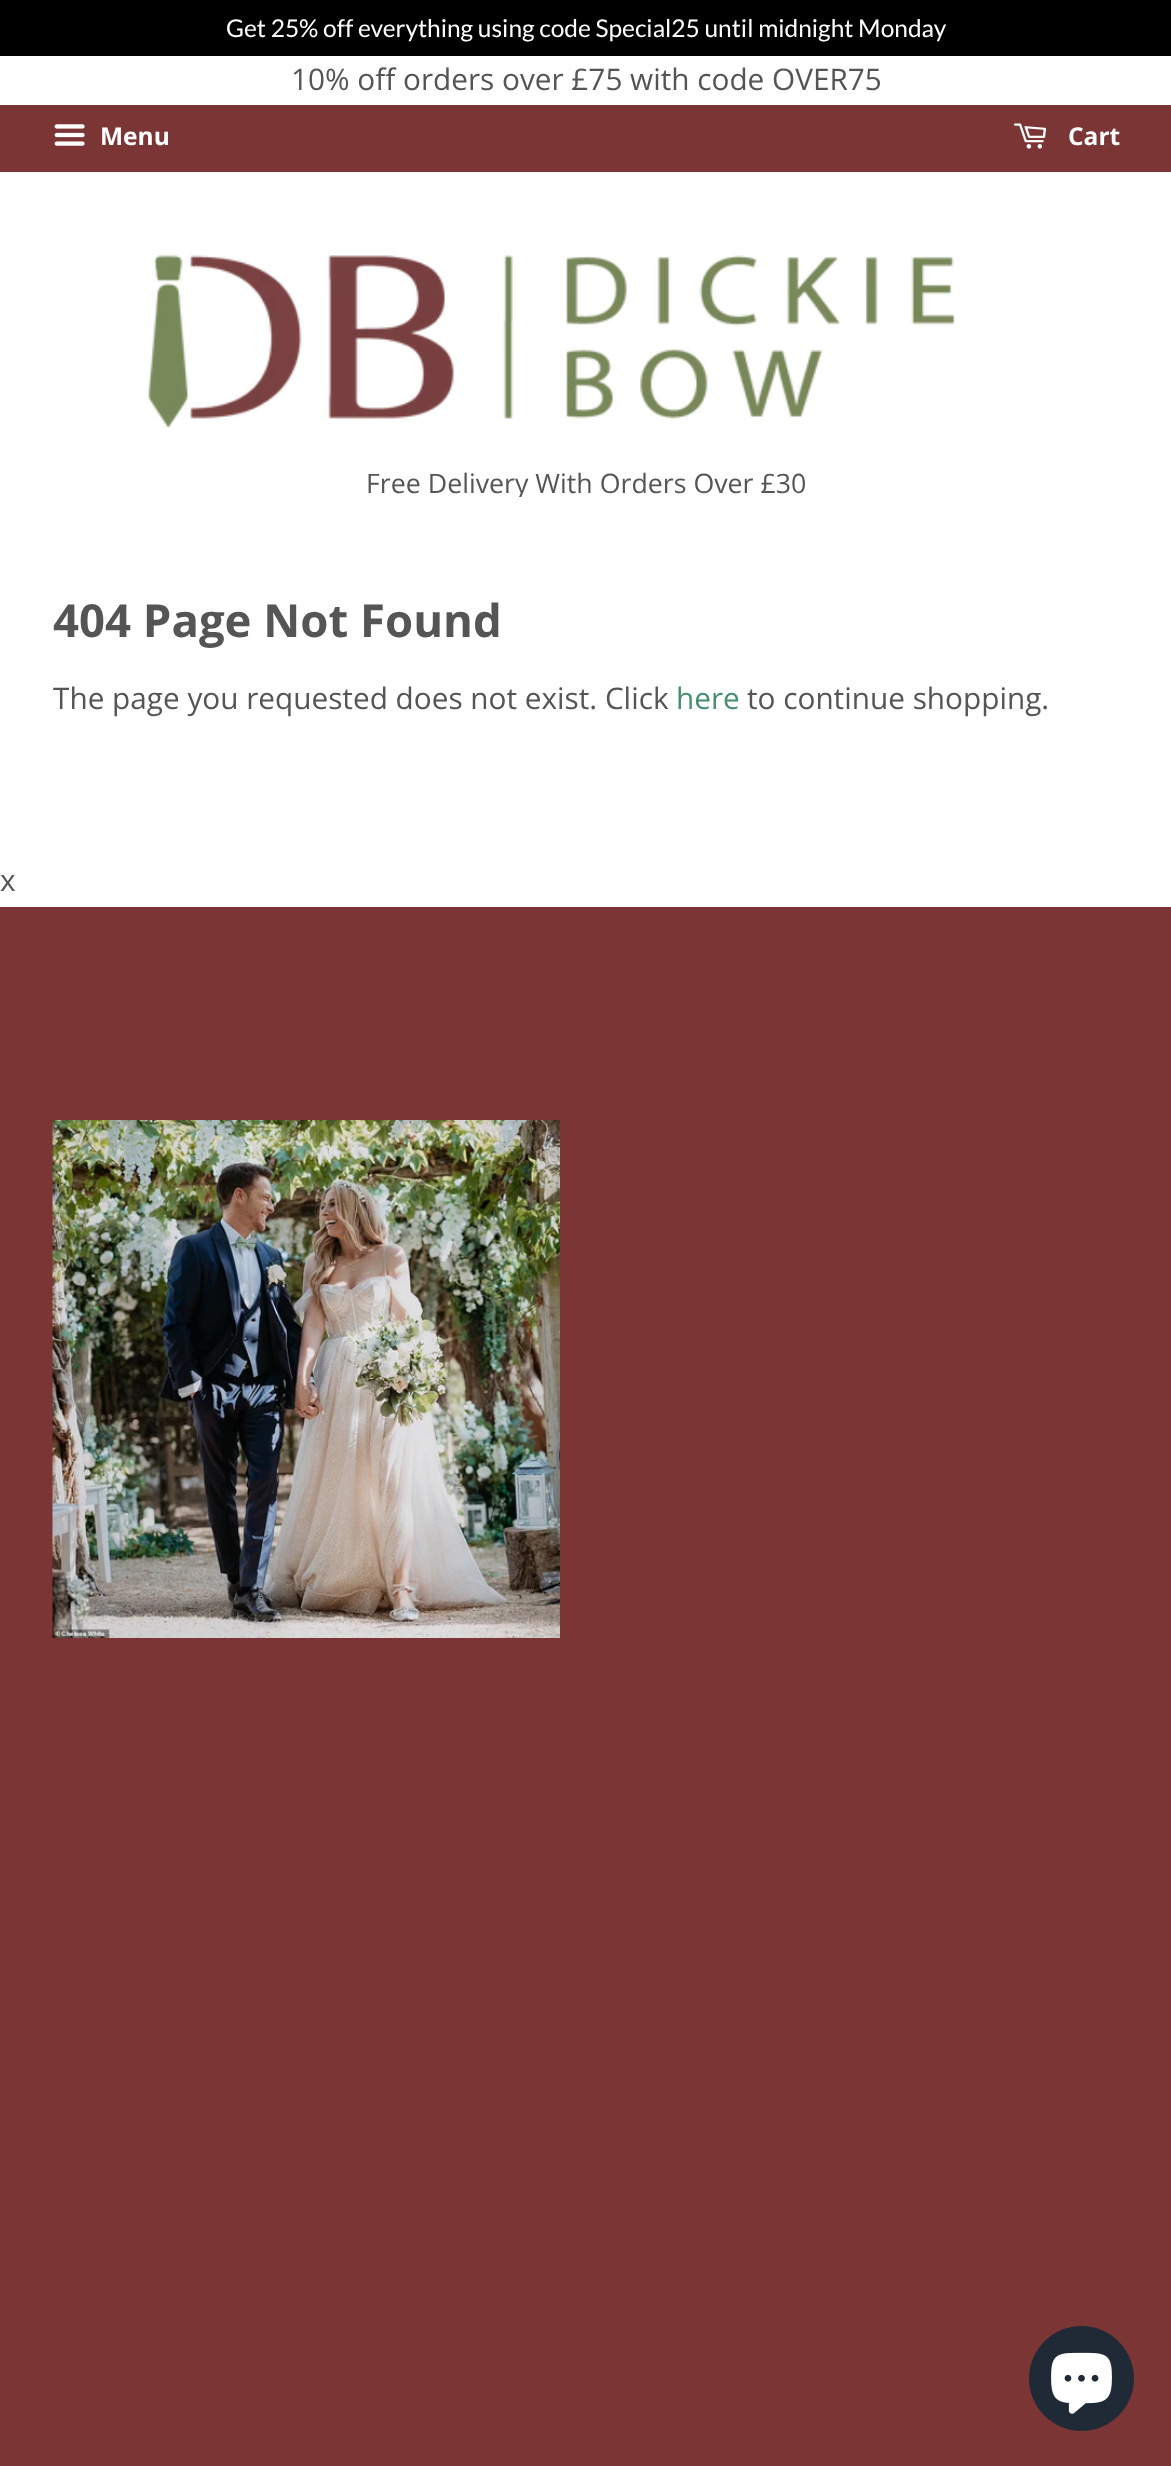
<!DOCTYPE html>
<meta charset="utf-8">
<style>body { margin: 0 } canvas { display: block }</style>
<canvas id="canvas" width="1171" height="2466"></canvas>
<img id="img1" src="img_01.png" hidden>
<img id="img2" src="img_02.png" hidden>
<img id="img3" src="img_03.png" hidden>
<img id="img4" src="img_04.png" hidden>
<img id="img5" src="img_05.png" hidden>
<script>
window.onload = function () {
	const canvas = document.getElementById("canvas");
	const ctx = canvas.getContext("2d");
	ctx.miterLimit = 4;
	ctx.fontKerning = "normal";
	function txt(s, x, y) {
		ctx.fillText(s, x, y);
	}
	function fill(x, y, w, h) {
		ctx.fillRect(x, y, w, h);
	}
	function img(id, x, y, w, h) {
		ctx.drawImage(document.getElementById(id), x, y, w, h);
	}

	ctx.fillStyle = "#FFFFFF";
	fill(0, 0, 1171, 2466);
	ctx.fillStyle = "#000000";
	fill(0, 0, 1171, 56);
	ctx.fillStyle = "#7B3535";
	fill(0, 105, 1171, 67);
	img("img1", 54, 124, 31, 22);
	img("img2", 1014, 123, 32, 26);
	img("img3", 148, 255, 807, 173);
	fill(0, 907, 1171, 1559);
	img("img4", 52, 1120, 508, 518);
	ctx.fillStyle = "#202A36";
	ctx.beginPath();
	ctx.arc(1081.5, 2378.5, 52.5, 0, Math.PI * 2);
	ctx.fill();
	img("img5", 1051, 2352, 61, 62);
	ctx.font = "24.5px Lato";
	ctx.fillStyle = "#FFFFFF";
	txt("Get 25% off everything using code Special25 until midnight Monday", 226, 37);
	ctx.font = "29.75px Open Sans";
	ctx.fillStyle = "#555555";
	txt("10% off orders over £75 with code OVER75", 291, 90);
	ctx.font = "bold 24.5px Open Sans";
	ctx.fillStyle = "#FFFFFF";
	txt("Menu", 100, 145);
	txt("Cart", 1068, 145);
	ctx.save();
	ctx.beginPath();
	ctx.rect(53, 467, 1067, 30);
	ctx.clip();
	ctx.font = "26.75px Open Sans";
	ctx.fillStyle = "#555555";
	txt("Free Delivery With Orders Over £30", 366, 493);
	ctx.restore();
	ctx.font = "bold 45.5px Open Sans";
	ctx.fillStyle = "#555555";
	txt("404 Page Not Found", 53, 637);
	ctx.font = "29.75px Open Sans";
	txt("The page you requested does not exist. Click", 53, 709);
	ctx.fillStyle = "#458F6E";
	txt("here", 676, 709);
	ctx.fillStyle = "#555555";
	txt("to continue shopping.", 747, 709);
	txt("x", 0, 891);
};
</script>
